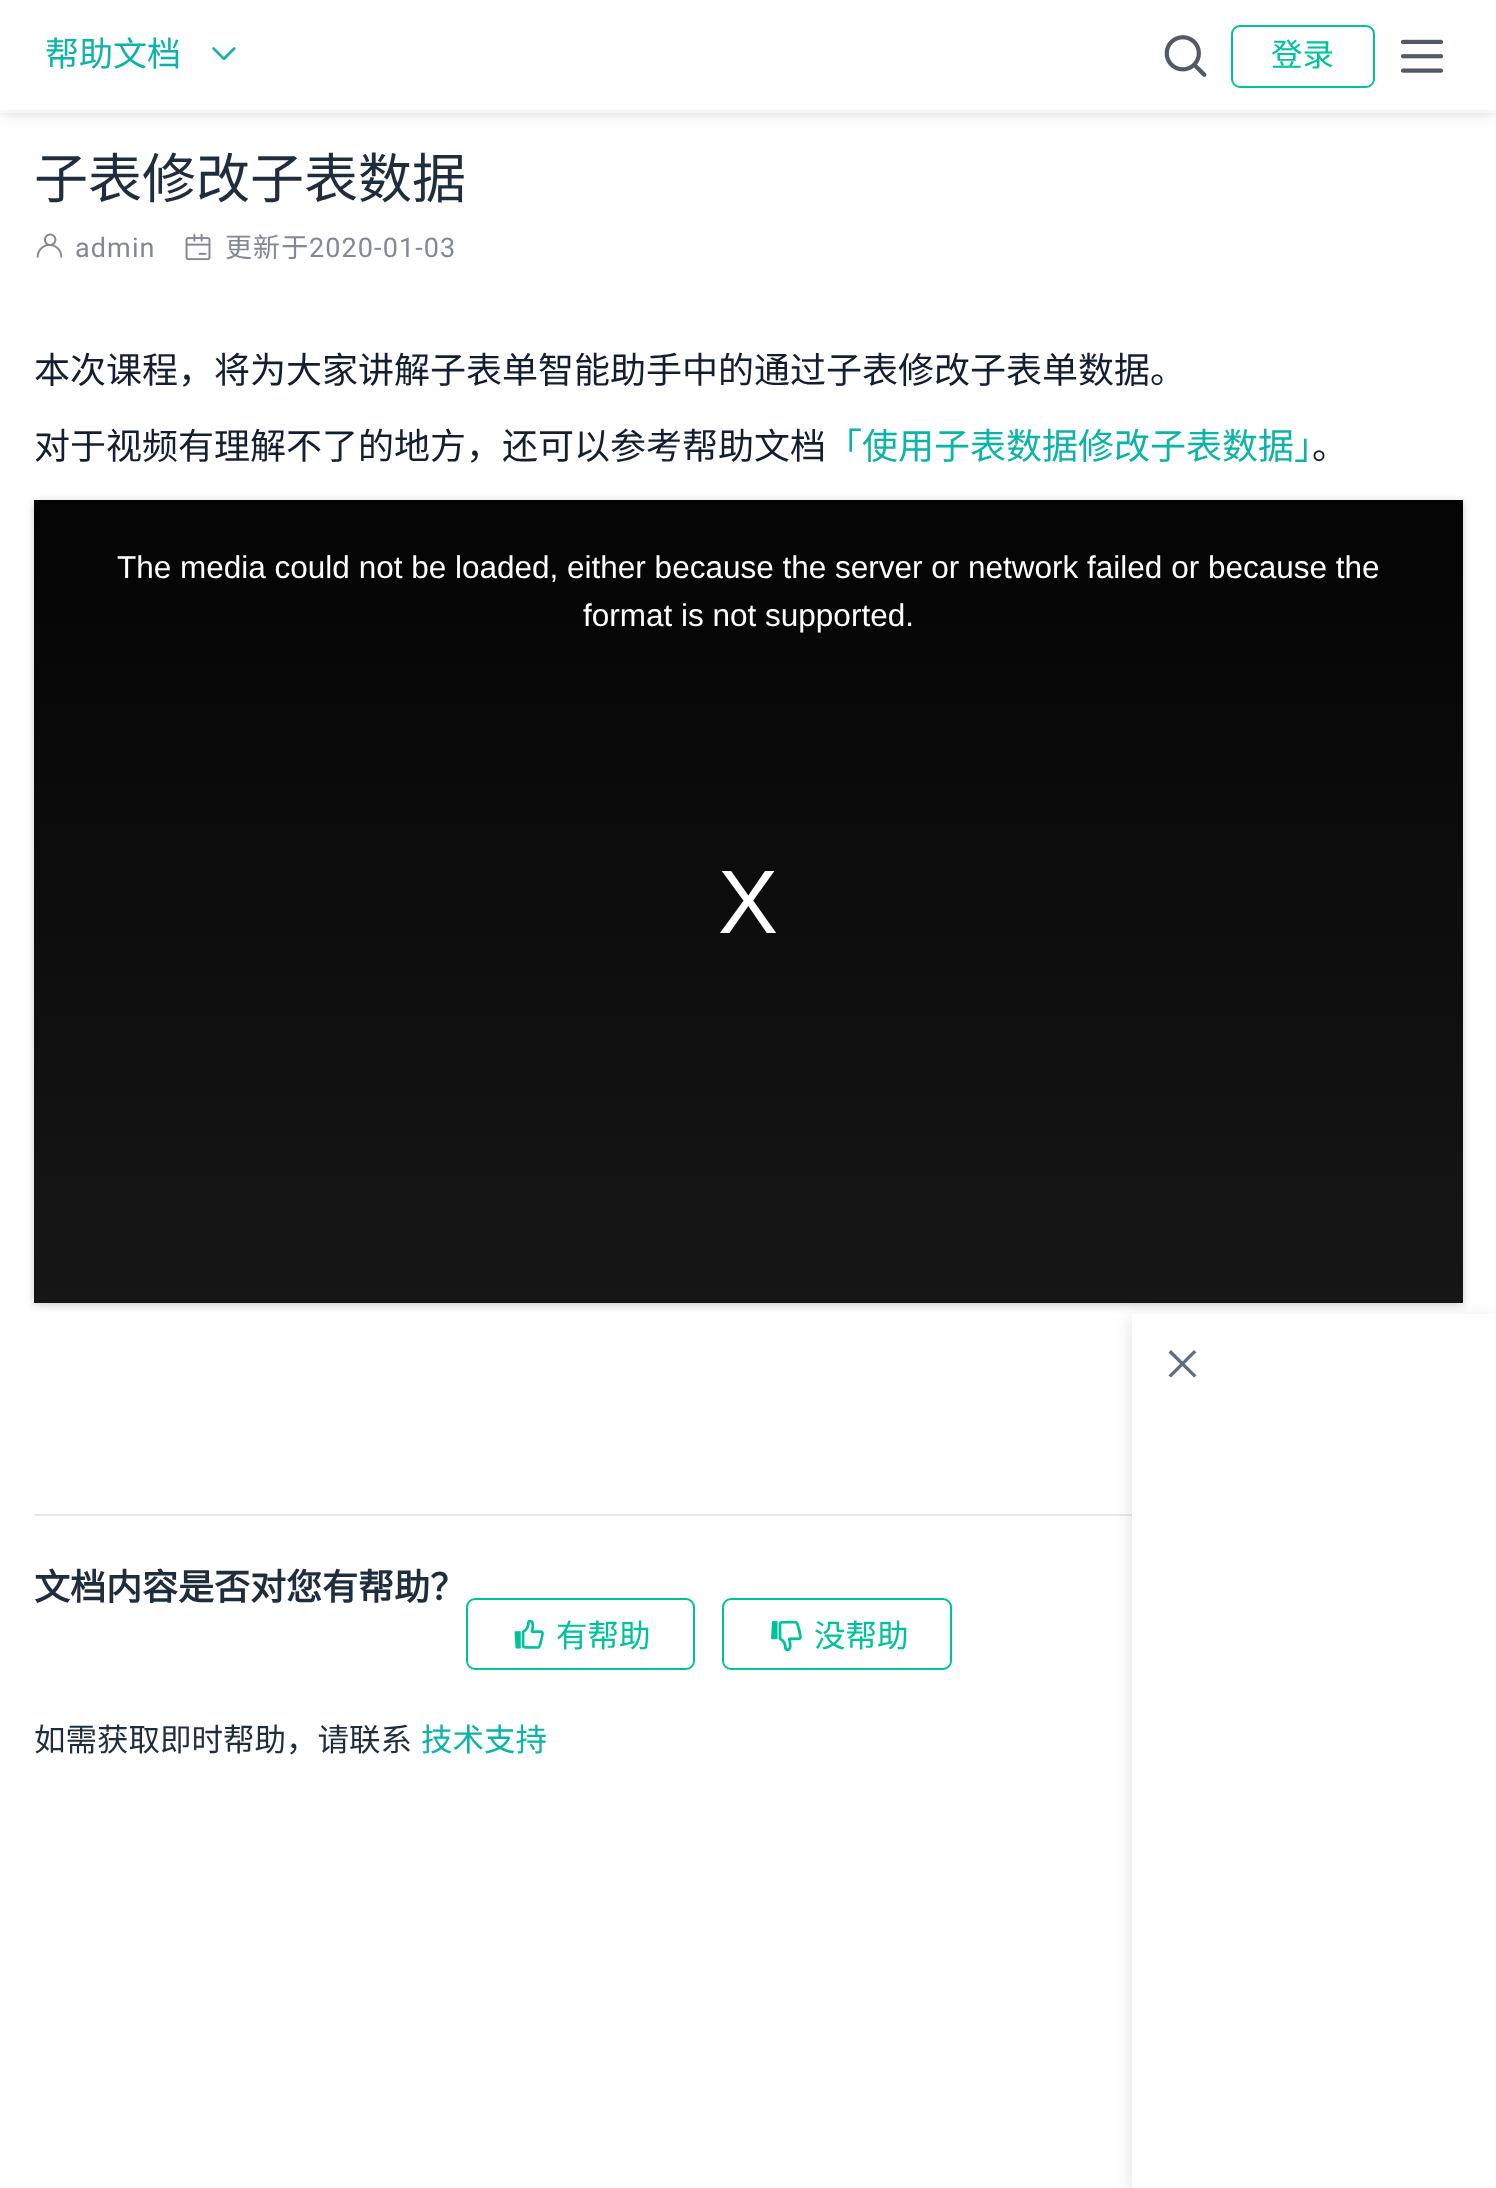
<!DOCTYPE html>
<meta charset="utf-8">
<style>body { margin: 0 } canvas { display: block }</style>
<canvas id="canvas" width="1496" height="2188"></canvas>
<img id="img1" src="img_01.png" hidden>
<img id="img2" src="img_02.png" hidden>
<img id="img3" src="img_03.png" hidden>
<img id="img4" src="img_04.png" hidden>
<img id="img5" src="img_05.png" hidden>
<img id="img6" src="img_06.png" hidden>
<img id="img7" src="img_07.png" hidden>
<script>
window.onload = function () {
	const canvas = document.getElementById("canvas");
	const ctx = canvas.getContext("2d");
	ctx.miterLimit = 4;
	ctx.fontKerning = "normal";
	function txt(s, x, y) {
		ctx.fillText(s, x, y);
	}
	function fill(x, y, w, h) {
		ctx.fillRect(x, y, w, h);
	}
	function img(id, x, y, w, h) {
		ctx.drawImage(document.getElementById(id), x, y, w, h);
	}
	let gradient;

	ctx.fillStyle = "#FFFFFF";
	fill(0, 0, 1496, 2188);
	ctx.fillStyle = "rgba(20, 30, 49, 0.1)";
	ctx.filter = "blur(9px)";
	ctx.beginPath();
	ctx.rect(0, 0, 1496, 113);
	ctx.fill();
	ctx.filter = "none";
	ctx.fillStyle = "#FFFFFF";
	fill(0, 0, 1496, 113);
	ctx.save();
	ctx.beginPath();
	ctx.rect(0, 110, 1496, 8);
	ctx.clip();
	ctx.fillStyle = "rgba(20, 30, 49, 0.1)";
	ctx.filter = "blur(9px)";
	ctx.beginPath();
	ctx.rect(0, 0, 1496, 110);
	ctx.fill();
	ctx.filter = "none";
	ctx.restore();
	img("img1", 212, 47, 24, 14);
	img("img2", 1164, 35, 43, 42);
	ctx.beginPath();
	ctx.roundRect(1232, 26, 142, 61, 8);
	ctx.strokeStyle = "#00C29A";
	ctx.lineWidth = 2;
	ctx.stroke();
	img("img3", 1400, 39, 44, 34);
	img("img4", 36, 233, 27, 25);
	img("img5", 185, 233, 26, 28);
	ctx.fillStyle = "rgba(0, 0, 0, 0.2)";
	ctx.filter = "blur(4.5px)";
	ctx.beginPath();
	ctx.rect(34, 502, 1429, 803);
	ctx.fill();
	ctx.filter = "none";
	gradient = ctx.createLinearGradient(748, 499, 748, 1303);
	gradient.addColorStop(0, "#040404");
	gradient.addColorStop(1, "#161616");
	ctx.fillStyle = gradient;
	fill(34, 500, 1429, 803);
	ctx.fillStyle = "#E9E9E9";
	fill(34, 1514, 1098, 2);
	ctx.fillStyle = "rgba(0, 0, 0, 0.12)";
	ctx.filter = "blur(9px)";
	ctx.beginPath();
	ctx.rect(1132, 1319, 364, 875);
	ctx.fill();
	ctx.filter = "none";
	ctx.fillStyle = "#FFFFFF";
	fill(1132, 1314, 364, 874);
	ctx.fillStyle = "#5E6D82";
	ctx.beginPath();
	ctx.moveTo(1195, 1353.5);
	ctx.lineTo(1196.5, 1352.5);
	ctx.lineTo(1194, 1350);
	ctx.lineTo(1168.5, 1375.5);
	ctx.lineTo(1171, 1377.5);
	ctx.closePath();
	ctx.moveTo(1193, 1376.5);
	ctx.lineTo(1194, 1377.5);
	ctx.lineTo(1196.5, 1375.5);
	ctx.lineTo(1171, 1350);
	ctx.lineTo(1168.5, 1352.5);
	ctx.closePath();
	ctx.fill();
	ctx.beginPath();
	ctx.roundRect(467, 1599, 227, 70, 8);
	ctx.stroke();
	img("img6", 514, 1619, 30, 30);
	ctx.beginPath();
	ctx.roundRect(723, 1599, 228, 70, 8);
	ctx.stroke();
	img("img7", 771, 1620, 31, 32);
	ctx.font = "34px Noto Sans CJK SC";
	ctx.fillStyle = "#0DB3A6";
	txt("帮助文档", 45, 66);
	ctx.font = "31.5px Noto Sans CJK SC";
	ctx.fillStyle = "#00C29A";
	txt("登录", 1271, 66);
	ctx.font = "54px Noto Sans CJK SC";
	ctx.fillStyle = "#1F2D3D";
	txt("子表修改子表数据", 34, 198);
	ctx.letterSpacing = "1.1px";
	ctx.font = "27px Roboto";
	ctx.fillStyle = "#838892";
	txt("admin", 75, 257);
	ctx.font = "27px Noto Sans CJK SC";
	txt("更新于", 225, 257);
	ctx.font = "27px Roboto";
	txt("2020-01-03", 309, 257);
	ctx.letterSpacing = "0px";
	ctx.font = "36px Noto Sans CJK SC";
	ctx.fillStyle = "#141E31";
	txt("本次课程，将为大家讲解子表单智能助手中的通过子表修改子表单数据。", 34, 383);
	txt("对于视频有理解不了的地方，还可以参考帮助文档", 34, 459);
	ctx.fillStyle = "#0DB3A6";
	txt("「使用子表数据修改子表数据」", 826, 459);
	ctx.fillStyle = "#141E31";
	txt("。", 1312, 459);
	ctx.font = "31.5px Liberation Sans";
	ctx.fillStyle = "#FFFFFF";
	txt("The media could not be loaded, either because the server or network failed or because the", 117, 578);
	txt("format is not supported.", 583, 626);
	ctx.font = "90px Liberation Sans";
	txt("X", 718, 933);
	ctx.font = "bold 36px Noto Sans CJK SC";
	ctx.fillStyle = "#1F2D3D";
	txt("文档内容是否对您有帮助？", 34, 1600);
	ctx.font = "31.5px Noto Sans CJK SC";
	ctx.fillStyle = "#00C29A";
	txt("有帮助", 556, 1647);
	txt("没帮助", 814, 1647);
	ctx.fillStyle = "#1F2D3D";
	txt("如需获取即时帮助，请联系", 34, 1751);
	ctx.fillStyle = "#0DB3A6";
	txt("技术支持", 421, 1751);
};
</script>
